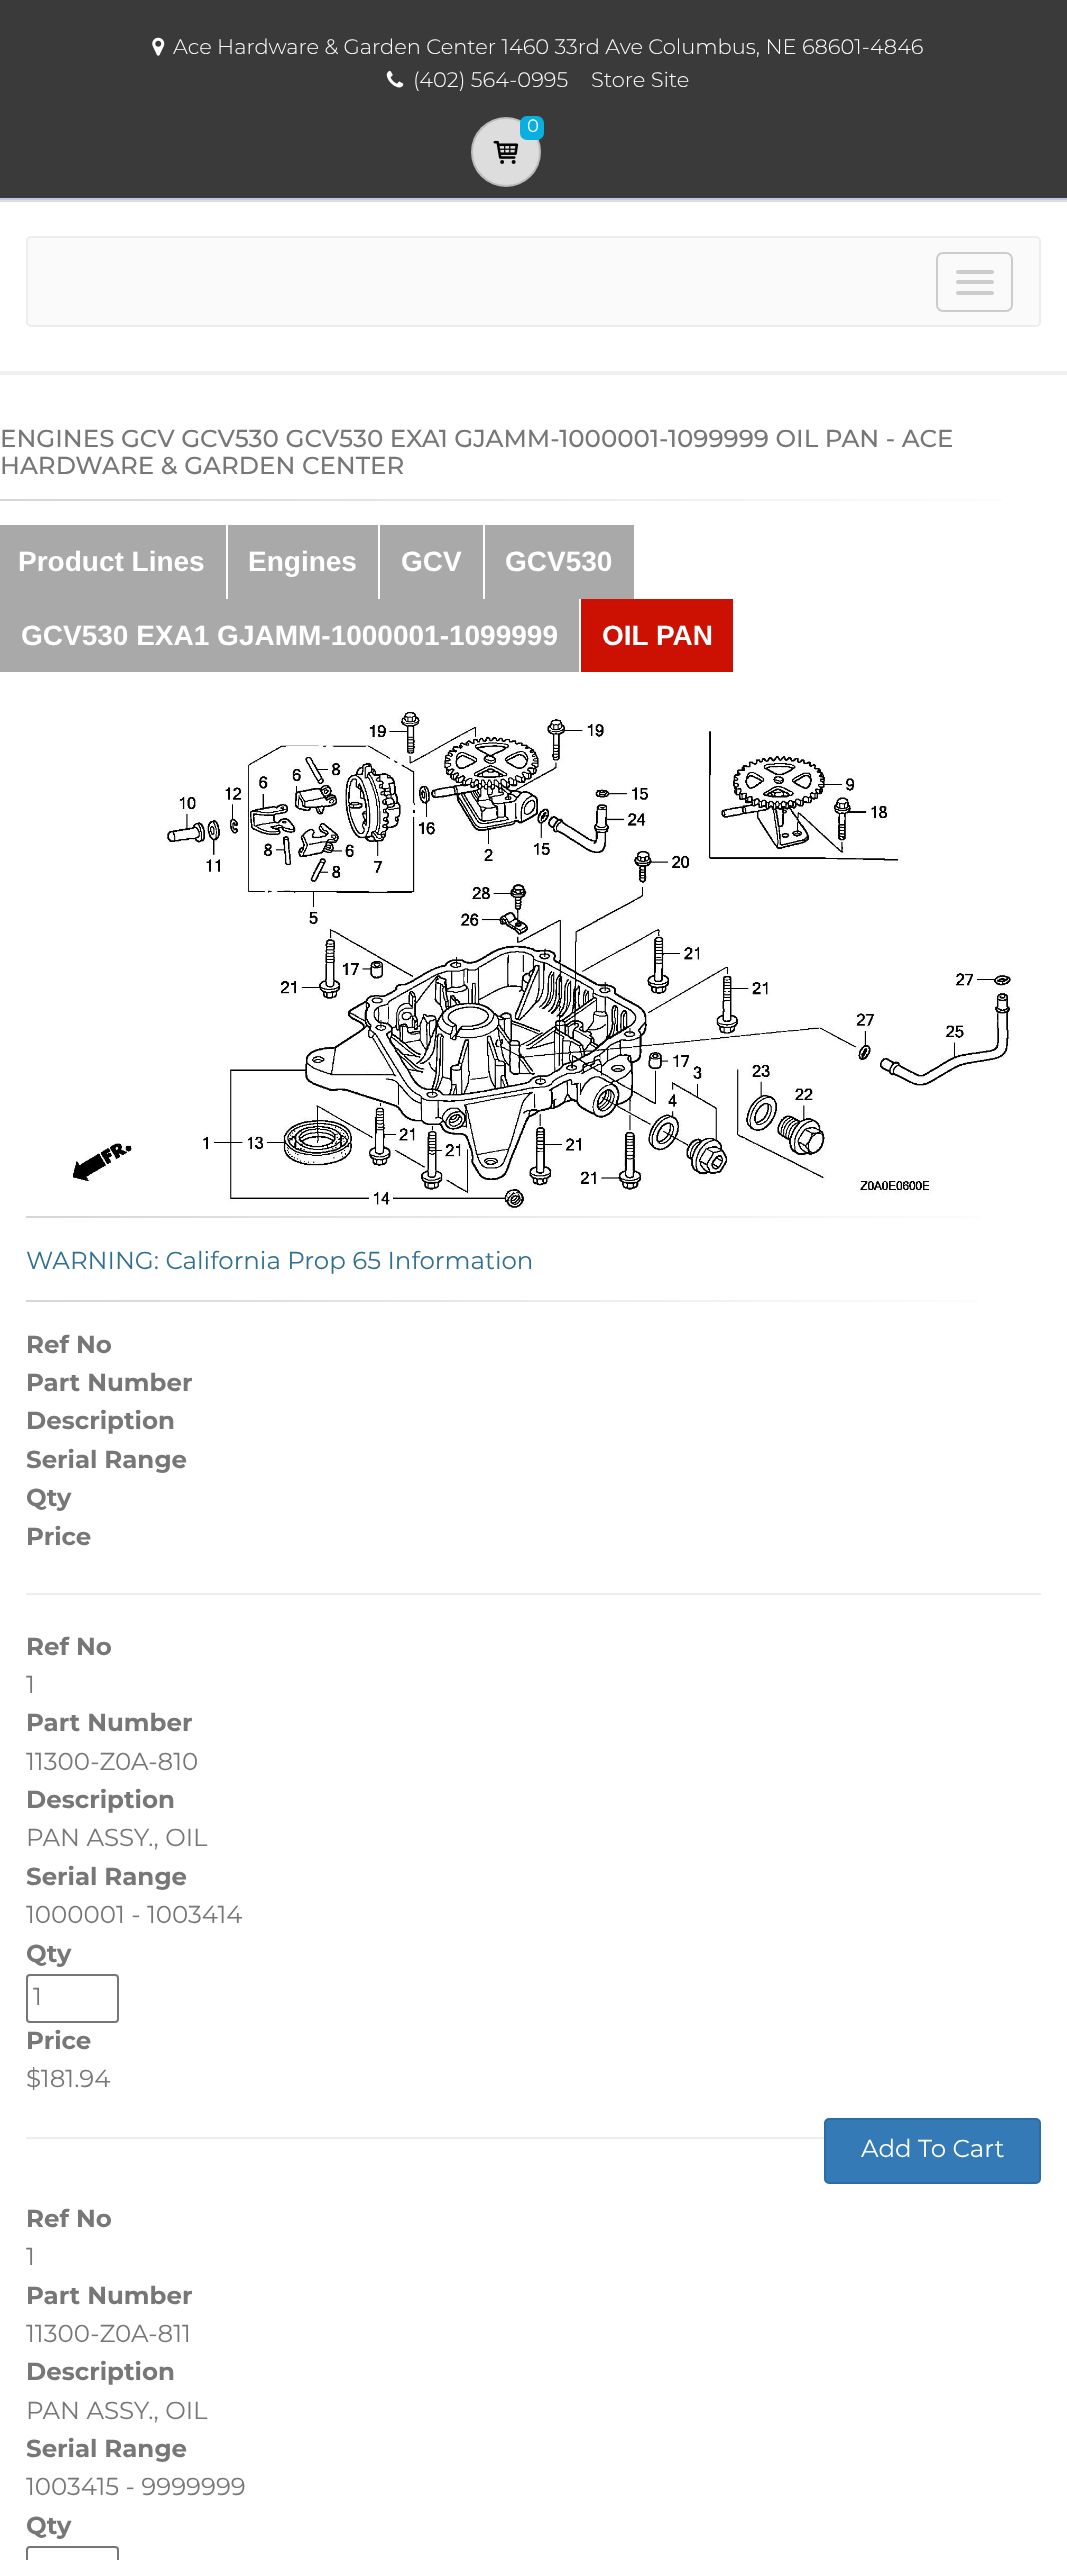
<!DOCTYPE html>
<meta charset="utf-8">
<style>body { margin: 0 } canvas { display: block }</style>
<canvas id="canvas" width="1067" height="2560"></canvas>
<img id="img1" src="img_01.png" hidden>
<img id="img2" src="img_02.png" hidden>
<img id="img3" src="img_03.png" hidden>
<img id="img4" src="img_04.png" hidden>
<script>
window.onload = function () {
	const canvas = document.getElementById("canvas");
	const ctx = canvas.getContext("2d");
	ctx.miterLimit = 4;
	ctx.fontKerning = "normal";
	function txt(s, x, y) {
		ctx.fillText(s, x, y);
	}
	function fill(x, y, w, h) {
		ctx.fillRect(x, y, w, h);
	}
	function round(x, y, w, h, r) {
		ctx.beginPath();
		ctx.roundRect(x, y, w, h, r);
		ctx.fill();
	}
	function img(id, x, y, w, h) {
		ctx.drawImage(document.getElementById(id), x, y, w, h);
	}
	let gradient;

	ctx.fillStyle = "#FFFFFF";
	fill(0, 0, 1067, 2560);
	ctx.fillStyle = "#3A3A3A";
	fill(0, 0, 1067, 198);
	ctx.fillStyle = "#BBC9E3";
	fill(0, 198, 1067, 2);
	img("img1", 152, 37, 13, 19);
	img("img2", 386, 71, 18, 17);
	ctx.fillStyle = "#DDDDDD";
	ctx.beginPath();
	ctx.arc(506, 152, 35, 0, Math.PI * 2);
	ctx.fill();
	ctx.beginPath();
	ctx.arc(506, 152, 34, 0, Math.PI * 2);
	ctx.strokeStyle = "rgba(0, 0, 0, 0.15)";
	ctx.lineWidth = 2;
	ctx.stroke();
	ctx.fillStyle = "#09AFDF";
	round(520, 116, 24, 24, 7);
	img("img3", 493, 140, 26, 24);
	ctx.fillStyle = "#DDDDDD";
	fill(0, 200, 1067, 2);
	ctx.fillStyle = "#F1F1F1";
	fill(0, 371, 1067, 4);
	ctx.fillStyle = "#FAFAFA";
	ctx.beginPath();
	ctx.roundRect(27, 237, 1013, 89, 4);
	ctx.fill();
	ctx.strokeStyle = "#EDEDED";
	ctx.stroke();
	ctx.beginPath();
	ctx.roundRect(937, 253, 75, 58, 6);
	ctx.strokeStyle = "#CCCCCC";
	ctx.stroke();
	ctx.fillStyle = "#CCCCCC";
	round(956, 270, 38, 4, 2);
	round(956, 280, 38, 4, 2);
	round(956, 291, 38, 4, 2);
	gradient = ctx.createLinearGradient(0, 500, 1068, 500);
	gradient.addColorStop(0, "#D6D6D6");
	gradient.addColorStop(1, "#FFFFFF");
	ctx.fillStyle = gradient;
	fill(0, 499, 1003, 2);
	ctx.fillStyle = "#A9A9A9";
	fill(0, 525, 226, 74);
	fill(228, 525, 150, 74);
	fill(380, 525, 103, 74);
	fill(485, 525, 149, 74);
	fill(0, 599, 579, 73);
	ctx.fillStyle = "#CC1001";
	fill(581, 599, 152, 73);
	img("img4", 73, 711, 939, 500);
	gradient = ctx.createLinearGradient(26, 1217, 1041, 1217);
	gradient.addColorStop(0, "#D6D6D6");
	gradient.addColorStop(1, "#FFFFFF");
	ctx.fillStyle = gradient;
	fill(26, 1216, 953, 2);
	gradient = ctx.createLinearGradient(26, 1301, 1041, 1301);
	gradient.addColorStop(0, "#D6D6D6");
	gradient.addColorStop(1, "#FFFFFF");
	ctx.fillStyle = gradient;
	fill(26, 1300, 953, 2);
	ctx.fillStyle = "#EEEEEE";
	fill(26, 1593, 1015, 2);
	ctx.beginPath();
	ctx.roundRect(27, 1975, 91, 47, 3);
	ctx.strokeStyle = "#767676";
	ctx.stroke();
	fill(26, 2137, 798, 2);
	ctx.fillStyle = "#337AB7";
	ctx.beginPath();
	ctx.roundRect(825, 2119, 215, 64, 4);
	ctx.fill();
	ctx.strokeStyle = "#2E6DA4";
	ctx.stroke();
	ctx.beginPath();
	ctx.roundRect(27, 2547, 91, 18, 3);
	ctx.strokeStyle = "#767676";
	ctx.stroke();
	ctx.font = "300 21px Montserrat";
	ctx.fillStyle = "#FFFFFF";
	txt("Ace Hardware & Garden Center 1460 33rd Ave Columbus, NE 68601-4846", 173, 54);
	txt("(402) 564-0995", 413, 87);
	txt("Store Site", 591, 87);
	ctx.font = "18px Montserrat";
	txt("0", 527, 132);
	ctx.font = "500 24.5px Montserrat";
	ctx.fillStyle = "#777777";
	txt("ENGINES GCV GCV530 GCV530 EXA1 GJAMM-1000001-1099999 OIL PAN - ACE", 0, 447);
	txt("HARDWARE & GARDEN CENTER", 0, 474);
	ctx.font = "bold 28px Liberation Sans";
	ctx.fillStyle = "#FFFFFF";
	txt("Product Lines", 18, 571);
	txt("Engines", 248, 571);
	txt("GCV", 401, 571);
	txt("GCV530", 505, 571);
	txt("GCV530 EXA1 GJAMM-1000001-1099999", 21, 645);
	txt("OIL PAN", 602, 645);
	ctx.font = "24.5px Montserrat";
	ctx.fillStyle = "#31708F";
	txt("WARNING: California Prop 65 Information", 26, 1269);
	ctx.font = "bold 24.5px Montserrat";
	ctx.fillStyle = "#777777";
	txt("Ref No", 26, 1353);
	txt("Part Number", 26, 1391);
	txt("Description", 26, 1429);
	txt("Serial Range", 26, 1468);
	txt("Qty", 26, 1506);
	txt("Price", 26, 1545);
	txt("Ref No", 26, 1655);
	ctx.font = "24.5px Montserrat";
	txt("1", 26, 1693);
	ctx.font = "bold 24.5px Montserrat";
	txt("Part Number", 26, 1731);
	ctx.font = "24.5px Montserrat";
	txt("11300-Z0A-810", 26, 1770);
	ctx.font = "bold 24.5px Montserrat";
	txt("Description", 26, 1808);
	ctx.font = "24.5px Montserrat";
	txt("PAN ASSY., OIL", 26, 1846);
	ctx.font = "bold 24.5px Montserrat";
	txt("Serial Range", 26, 1885);
	ctx.font = "24.5px Montserrat";
	txt("1000001 - 1003414", 26, 1923);
	ctx.font = "bold 24.5px Montserrat";
	txt("Qty", 26, 1962);
	ctx.font = "24.5px Montserrat";
	txt("1", 33, 2005);
	ctx.font = "bold 24.5px Montserrat";
	txt("Price", 26, 2049);
	ctx.font = "24.5px Montserrat";
	txt("$181.94", 26, 2087);
	ctx.fillStyle = "#FFFFFF";
	txt("Add To Cart", 861, 2157);
	ctx.font = "bold 24.5px Montserrat";
	ctx.fillStyle = "#777777";
	txt("Ref No", 26, 2227);
	ctx.font = "24.5px Montserrat";
	txt("1", 26, 2265);
	ctx.font = "bold 24.5px Montserrat";
	txt("Part Number", 26, 2304);
	ctx.font = "24.5px Montserrat";
	txt("11300-Z0A-811", 26, 2342);
	ctx.font = "bold 24.5px Montserrat";
	txt("Description", 26, 2380);
	ctx.font = "24.5px Montserrat";
	txt("PAN ASSY., OIL", 26, 2419);
	ctx.font = "bold 24.5px Montserrat";
	txt("Serial Range", 26, 2457);
	ctx.font = "24.5px Montserrat";
	txt("1003415 - 9999999", 26, 2495);
	ctx.font = "bold 24.5px Montserrat";
	txt("Qty", 26, 2534);
};
</script>
